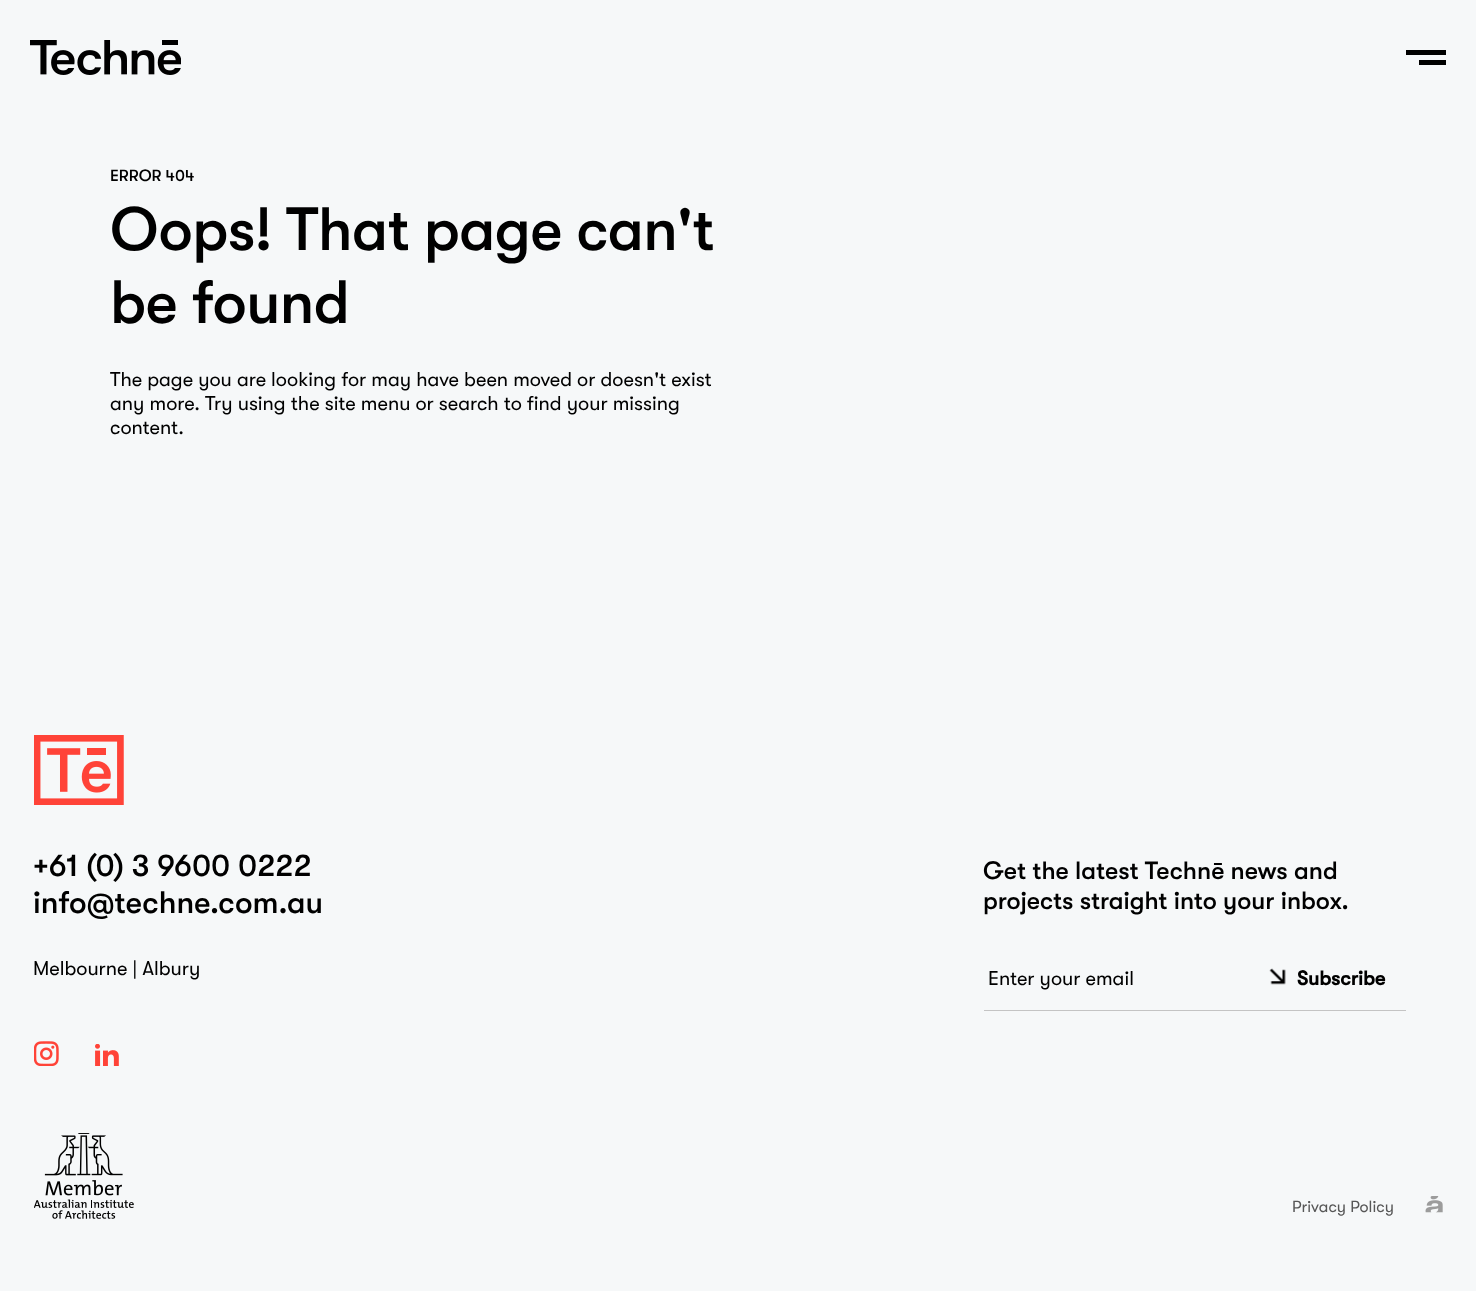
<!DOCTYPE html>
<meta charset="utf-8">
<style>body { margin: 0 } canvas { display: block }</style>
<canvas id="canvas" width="1476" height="1291"></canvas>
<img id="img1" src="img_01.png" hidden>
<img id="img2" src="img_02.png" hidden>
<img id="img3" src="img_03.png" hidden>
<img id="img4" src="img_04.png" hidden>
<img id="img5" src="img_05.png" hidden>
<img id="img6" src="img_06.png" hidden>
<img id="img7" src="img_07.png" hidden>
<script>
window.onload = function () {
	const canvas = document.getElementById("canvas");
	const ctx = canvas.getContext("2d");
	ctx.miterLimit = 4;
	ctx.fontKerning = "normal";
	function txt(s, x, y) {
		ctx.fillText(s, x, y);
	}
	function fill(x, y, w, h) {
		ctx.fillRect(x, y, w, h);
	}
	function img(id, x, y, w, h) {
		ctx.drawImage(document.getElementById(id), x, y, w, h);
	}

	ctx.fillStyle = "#F6F8F9";
	fill(0, 0, 1476, 1291);
	img("img1", 30, 40, 151, 35);
	ctx.fillStyle = "#000000";
	fill(1406, 50, 40, 5);
	fill(1419, 60, 27, 5);
	img("img2", 34, 735, 90, 70);
	img("img3", 34, 1041, 25, 25);
	img("img4", 95, 1044, 24, 22);
	ctx.fillStyle = "#C4C4C4";
	fill(984, 1010, 422, 1);
	img("img5", 1269, 968, 17, 17);
	img("img6", 34, 1133, 100, 86);
	img("img7", 1425, 1196, 18, 17);
	ctx.font = "500 16.25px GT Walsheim";
	ctx.fillStyle = "#000000";
	txt("ERROR 404", 110, 181);
	ctx.letterSpacing = "-0.6px";
	ctx.font = "500 61px GT Walsheim";
	txt("Oops! That page can't", 110, 250);
	txt("be found", 110, 323);
	ctx.letterSpacing = "0px";
	ctx.font = "20px GT Walsheim";
	txt("The page you are looking for may have been moved or doesn't exist", 110, 386);
	txt("any more. Try using the site menu or search to find your missing", 110, 410);
	txt("content.", 110, 434);
	ctx.font = "500 31.25px GT Walsheim";
	txt("+61 (0) 3 9600 0222", 33, 876);
	txt("info@techne.com.au", 33, 913);
	ctx.font = "20px GT Walsheim";
	txt("Melbourne | Albury", 33, 975);
	ctx.font = "500 25px GT Walsheim";
	txt("Get the latest Technē news and", 983, 879);
	txt("projects straight into your inbox.", 983, 909);
	ctx.font = "20px GT Walsheim";
	txt("Enter your email", 988, 985);
	ctx.font = "bold 20px GT Walsheim";
	txt("Subscribe", 1297, 985);
	ctx.font = "16.25px GT Walsheim";
	ctx.fillStyle = "#575757";
	txt("Privacy Policy", 1292, 1212);
};
</script>
